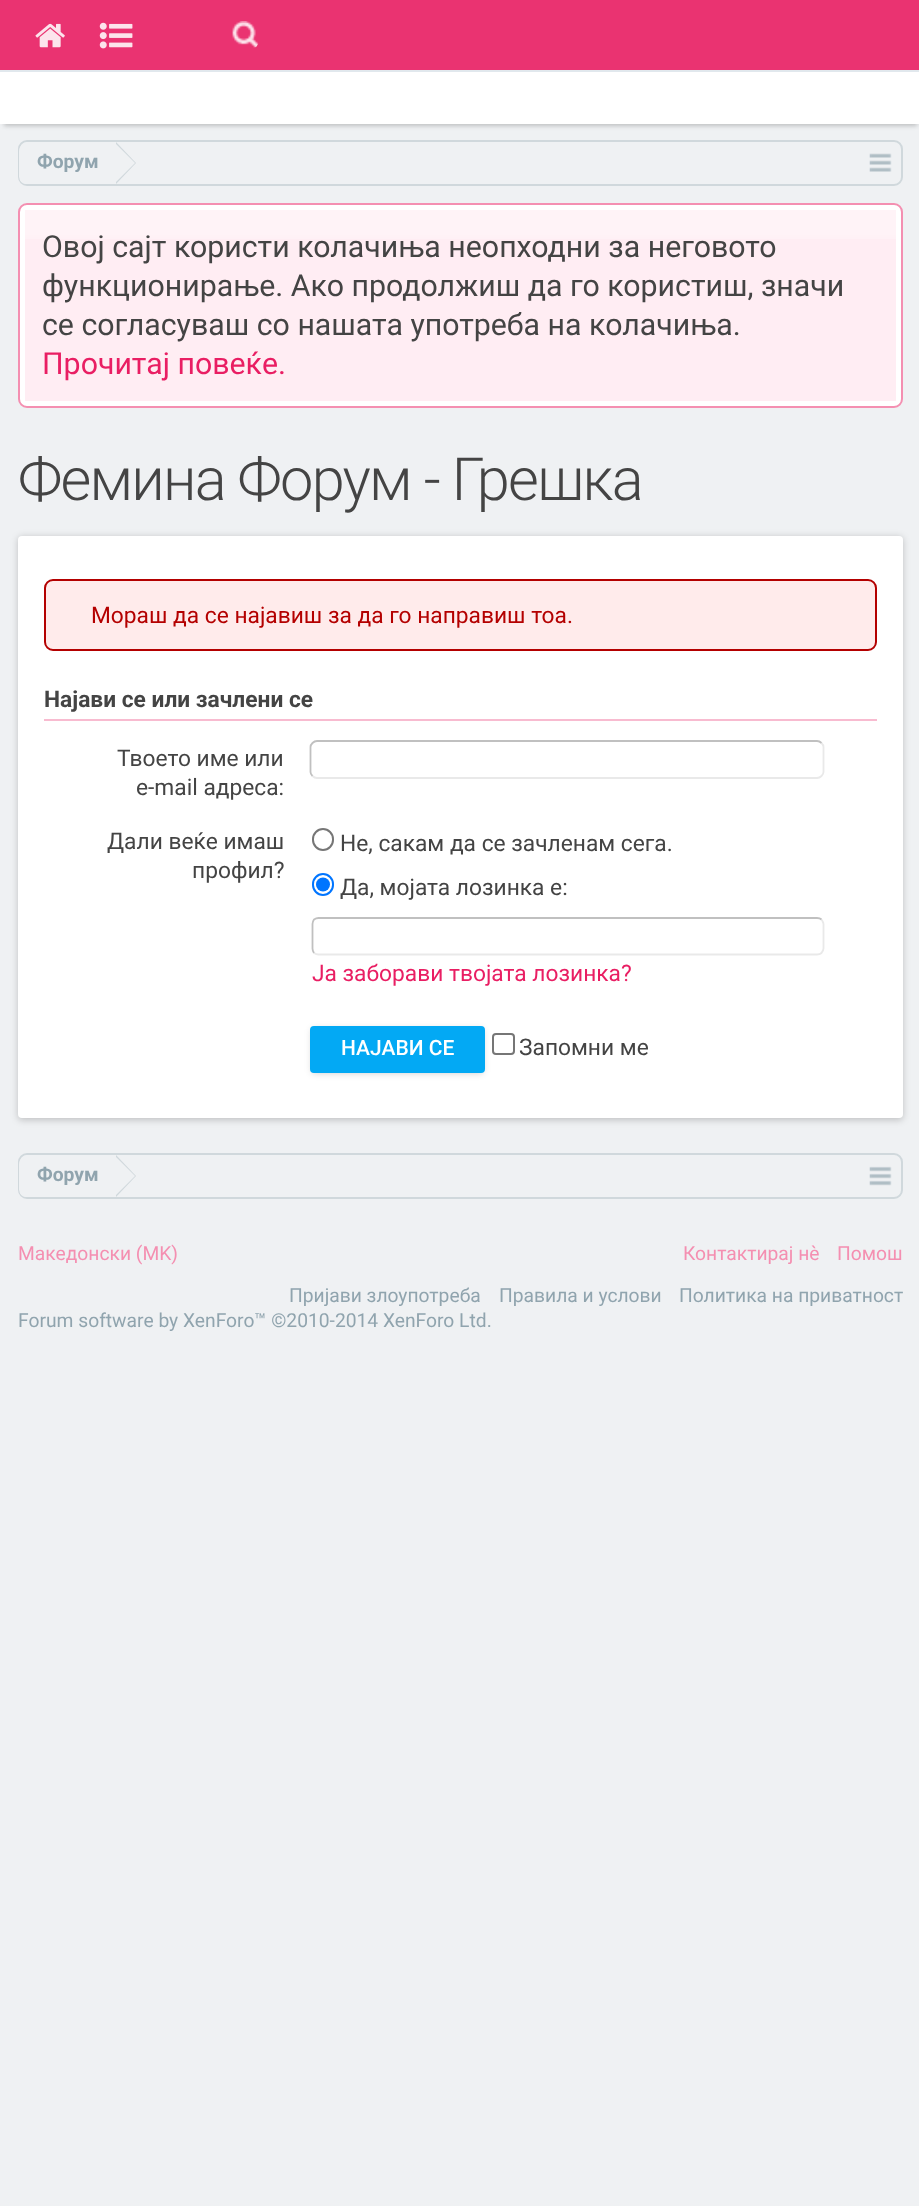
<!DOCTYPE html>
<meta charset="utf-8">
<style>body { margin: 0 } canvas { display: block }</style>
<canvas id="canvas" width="919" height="2206"></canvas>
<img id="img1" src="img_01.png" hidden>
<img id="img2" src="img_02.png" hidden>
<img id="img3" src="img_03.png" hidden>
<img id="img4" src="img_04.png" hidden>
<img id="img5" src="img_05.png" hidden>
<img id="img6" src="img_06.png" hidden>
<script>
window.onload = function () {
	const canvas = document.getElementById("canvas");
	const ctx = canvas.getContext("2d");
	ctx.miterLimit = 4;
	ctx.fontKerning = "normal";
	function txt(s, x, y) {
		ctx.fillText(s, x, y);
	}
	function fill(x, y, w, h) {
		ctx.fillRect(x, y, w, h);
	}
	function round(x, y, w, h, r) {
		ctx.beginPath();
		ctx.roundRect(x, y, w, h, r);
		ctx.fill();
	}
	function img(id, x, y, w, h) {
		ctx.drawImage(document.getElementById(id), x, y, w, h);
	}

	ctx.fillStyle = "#EFF1F3";
	fill(0, 0, 919, 2206);
	ctx.fillStyle = "#EA3371";
	fill(0, 0, 919, 70);
	img("img1", 35, 23, 30, 25);
	img("img2", 99, 22, 34, 27);
	ctx.fillStyle = "rgba(0, 0, 0, 0.2)";
	ctx.filter = "blur(2px)";
	ctx.beginPath();
	ctx.rect(4, 79, 913, 47);
	ctx.fill();
	ctx.filter = "none";
	ctx.fillStyle = "#FFFFFF";
	fill(0, 72, 919, 52);
	ctx.fillStyle = "#E1E8ED";
	fill(0, 70, 919, 2);
	img("img3", 232, 21, 27, 27);
	ctx.beginPath();
	ctx.roundRect(19, 141, 883, 44, 8);
	ctx.strokeStyle = "#D0D8DC";
	ctx.lineWidth = 2;
	ctx.stroke();
	ctx.save();
	ctx.beginPath();
	ctx.roundRect(19, 142, 882, 42, 7);
	ctx.clip();
	ctx.fillStyle = "#EFF1F3";
	ctx.beginPath();
	ctx.roundRect(19, 142, 97, 44, [9, 0, 0, 9]);
	ctx.fill();
	ctx.restore();
	ctx.fillStyle = "#D0D8DC";
	ctx.beginPath();
	ctx.moveTo(116, 184);
	ctx.lineTo(116, 142);
	ctx.lineTo(136, 163);
	ctx.closePath();
	ctx.fill();
	ctx.fillStyle = "#EFF1F3";
	ctx.beginPath();
	ctx.moveTo(114, 184);
	ctx.lineTo(114, 142);
	ctx.lineTo(135, 163);
	ctx.closePath();
	ctx.fill();
	img("img4", 869, 153, 23, 19);
	ctx.fillStyle = "#FFFFFF";
	ctx.beginPath();
	ctx.roundRect(19, 204, 883, 203, 8);
	ctx.fill();
	ctx.strokeStyle = "#F48FB1";
	ctx.stroke();
	ctx.fillStyle = "#FFEDF3";
	fill(25, 210, 871, 191);
	img("img5", 25, 210, 871, 29);
	ctx.fillStyle = "rgba(0, 0, 0, 0.2)";
	ctx.filter = "blur(3.5px)";
	ctx.beginPath();
	ctx.roundRect(18, 537, 885, 583, 4);
	ctx.fill();
	ctx.filter = "none";
	ctx.fillStyle = "#FFFFFF";
	round(18, 536, 885, 582, 4);
	ctx.fillStyle = "#FFEBEB";
	ctx.beginPath();
	ctx.roundRect(45, 580, 831, 70, 8);
	ctx.fill();
	ctx.strokeStyle = "#B40000";
	ctx.stroke();
	ctx.fillStyle = "#F8BBD0";
	fill(44, 719, 833, 2);
	ctx.beginPath();
	ctx.moveTo(821.5, 743);
	ctx.bezierCurveTo(822.5, 744, 823.5, 745.5, 823.5, 747);
	ctx.lineTo(823.5, 772);
	ctx.bezierCurveTo(823.5, 773.5, 822.5, 775, 821.5, 776);
	ctx.bezierCurveTo(820.5, 777, 819, 778, 817, 778);
	ctx.lineTo(317, 778);
	ctx.bezierCurveTo(315, 778, 313.5, 777, 312.5, 776);
	ctx.strokeStyle = "#E9E9E9";
	ctx.lineWidth = 1.8;
	ctx.stroke();
	ctx.beginPath();
	ctx.moveTo(312.5, 776);
	ctx.bezierCurveTo(311.5, 775, 310.5, 773.5, 310.5, 772);
	ctx.lineTo(310.5, 747);
	ctx.bezierCurveTo(310.5, 745.5, 311.5, 744, 312.5, 743);
	ctx.bezierCurveTo(313.5, 742, 315, 741, 317, 741);
	ctx.lineTo(817, 741);
	ctx.bezierCurveTo(819, 741, 820.5, 742, 821.5, 743);
	ctx.strokeStyle = "#C0C0C0";
	ctx.stroke();
	ctx.beginPath();
	ctx.roundRect(313, 829, 20, 21, 10);
	ctx.strokeStyle = "#767676";
	ctx.lineWidth = 2;
	ctx.stroke();
	ctx.beginPath();
	ctx.roundRect(313, 874, 20, 21, 10);
	ctx.strokeStyle = "#0075FF";
	ctx.stroke();
	ctx.fillStyle = "#0075FF";
	ctx.beginPath();
	ctx.arc(323, 884.5, 7, 0, Math.PI * 2);
	ctx.fill();
	ctx.beginPath();
	ctx.moveTo(821.5, 919.5);
	ctx.bezierCurveTo(822.5, 921, 823.5, 922.5, 823.5, 924);
	ctx.lineTo(823.5, 948.5);
	ctx.bezierCurveTo(823.5, 950, 822.5, 951.5, 821.5, 953);
	ctx.bezierCurveTo(820.5, 954, 819, 954.5, 817, 954.5);
	ctx.lineTo(318.5, 954.5);
	ctx.bezierCurveTo(317, 954.5, 315.5, 954, 314, 953);
	ctx.strokeStyle = "#E9E9E9";
	ctx.lineWidth = 1.8;
	ctx.stroke();
	ctx.beginPath();
	ctx.moveTo(314, 953);
	ctx.bezierCurveTo(313, 951.5, 312.5, 950, 312.5, 948.5);
	ctx.lineTo(312.5, 924);
	ctx.bezierCurveTo(312.5, 922.5, 313, 921, 314, 919.5);
	ctx.bezierCurveTo(315.5, 918.5, 317, 918, 318.5, 918);
	ctx.lineTo(817, 918);
	ctx.bezierCurveTo(819, 918, 820.5, 918.5, 821.5, 919.5);
	ctx.strokeStyle = "#C0C0C0";
	ctx.stroke();
	ctx.beginPath();
	ctx.roundRect(493, 1034, 21, 20, 3);
	ctx.strokeStyle = "#767676";
	ctx.lineWidth = 2;
	ctx.stroke();
	ctx.fillStyle = "rgba(0, 0, 0, 0.2)";
	ctx.filter = "blur(3.5px)";
	ctx.beginPath();
	ctx.roundRect(312, 1029, 171, 44, 2);
	ctx.fill();
	ctx.filter = "none";
	ctx.fillStyle = "#03A9F4";
	ctx.beginPath();
	ctx.roundRect(311, 1027, 173, 45, 3);
	ctx.fill();
	ctx.strokeStyle = "#03A9F4";
	ctx.stroke();
	ctx.beginPath();
	ctx.roundRect(19, 1154, 883, 44, 8);
	ctx.strokeStyle = "#D0D8DC";
	ctx.stroke();
	ctx.save();
	ctx.beginPath();
	ctx.roundRect(19, 1155, 882, 42, 7);
	ctx.clip();
	ctx.fillStyle = "#EFF1F3";
	ctx.beginPath();
	ctx.roundRect(19, 1155, 97, 44, [9, 0, 0, 9]);
	ctx.fill();
	ctx.restore();
	ctx.fillStyle = "#D0D8DC";
	ctx.beginPath();
	ctx.moveTo(116, 1197);
	ctx.lineTo(116, 1155);
	ctx.lineTo(136, 1176);
	ctx.closePath();
	ctx.fill();
	ctx.fillStyle = "#EFF1F3";
	ctx.beginPath();
	ctx.moveTo(114, 1197);
	ctx.lineTo(114, 1155);
	ctx.lineTo(135, 1176);
	ctx.closePath();
	ctx.fill();
	img("img6", 869, 1166, 23, 20);
	ctx.font = "bold 19.25px Roboto";
	ctx.fillStyle = "#90A4AE";
	txt("Форум", 37, 168);
	ctx.font = "30.3px Roboto";
	ctx.fillStyle = "#444444";
	txt("Овој сајт користи колачиња неопходни за неговото", 42, 257);
	txt("функционирање. Ако продолжиш да го користиш, значи", 42, 296);
	txt("се согласуваш со нашата употреба на колачиња.", 42, 335);
	ctx.fillStyle = "#E91E63";
	txt("Прочитај повеќе.", 42, 374);
	ctx.letterSpacing = "-1.75px";
	ctx.font = "300 59.5px Roboto";
	ctx.fillStyle = "#444444";
	txt("Фемина Форум - Грешка", 18, 500);
	ctx.letterSpacing = "0px";
	ctx.font = "22.75px Roboto";
	ctx.fillStyle = "#B40000";
	txt("Мораш да се најавиш за да го направиш тоа.", 91, 623);
	ctx.font = "bold 22.75px Roboto";
	ctx.fillStyle = "#444444";
	txt("Најави се или зачлени се", 44, 707);
	ctx.font = "22.75px Roboto";
	txt("Твоето име или", 117, 766);
	txt("e-mail адреса:", 136, 795);
	txt("Дали веќе имаш", 107, 849);
	txt("профил?", 192, 878);
	txt("Не, сакам да се зачленам сега.", 340, 851);
	txt("Да, мојата лозинка е:", 340, 895);
	ctx.fillStyle = "#E91E63";
	txt("Ја заборави твојата лозинка?", 312, 981);
	ctx.font = "500 21px Roboto";
	ctx.fillStyle = "#FFFFFF";
	txt("НАЈАВИ СЕ", 341, 1055);
	ctx.font = "22.75px Roboto";
	ctx.fillStyle = "#444444";
	txt("Запомни ме", 519, 1055);
	ctx.font = "bold 19.25px Roboto";
	ctx.fillStyle = "#90A4AE";
	txt("Форум", 37, 1181);
	ctx.font = "19.25px Roboto";
	ctx.fillStyle = "#F48FB1";
	txt("Македонски (MK)", 18, 1260);
	txt("Контактирај нè", 683, 1260);
	txt("Помош", 837, 1260);
	ctx.fillStyle = "#90A4AE";
	txt("Пријави злоупотреба", 289, 1302);
	txt("Правила и услови", 499, 1302);
	txt("Политика на приватност", 679, 1302);
	txt("Forum software by XenForo™ ©2010-2014 XenForo Ltd.", 18, 1327);
};
</script>
